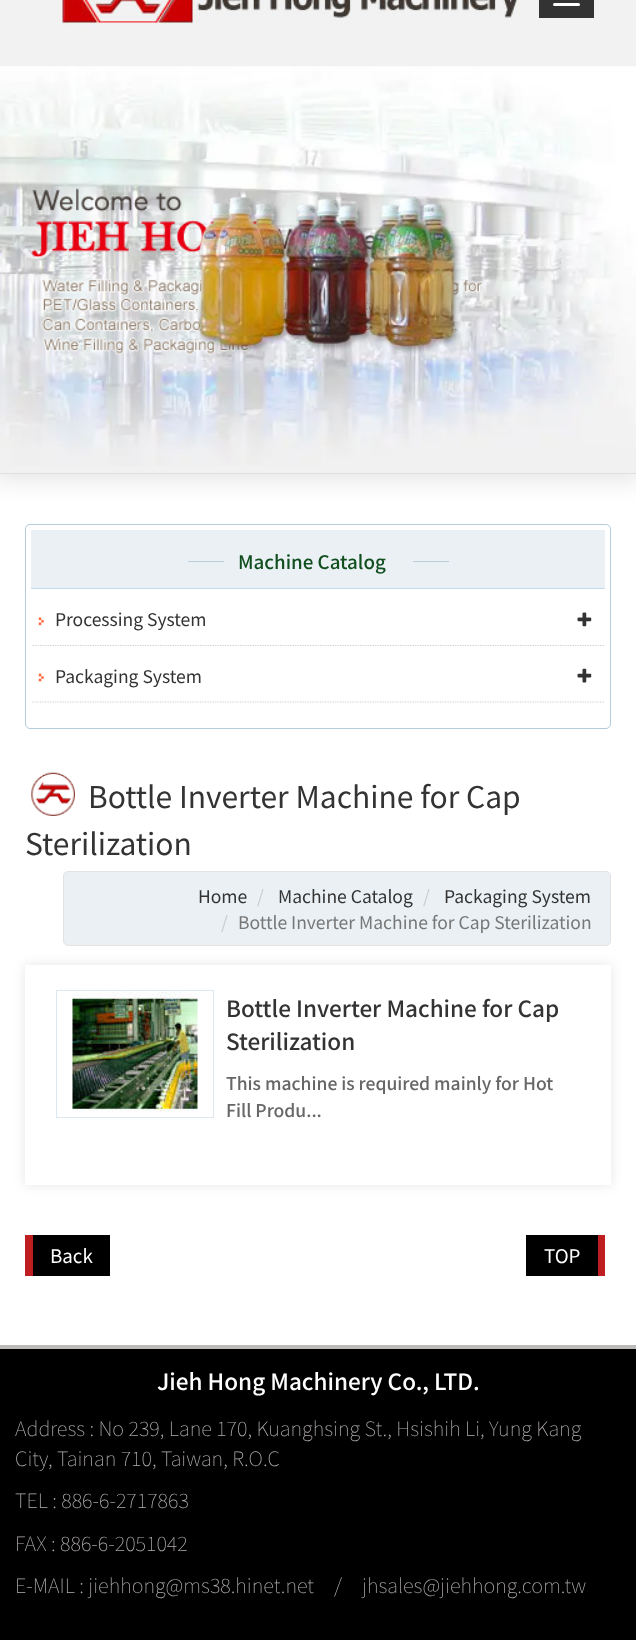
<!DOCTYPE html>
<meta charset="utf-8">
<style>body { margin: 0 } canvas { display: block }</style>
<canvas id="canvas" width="636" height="1640"></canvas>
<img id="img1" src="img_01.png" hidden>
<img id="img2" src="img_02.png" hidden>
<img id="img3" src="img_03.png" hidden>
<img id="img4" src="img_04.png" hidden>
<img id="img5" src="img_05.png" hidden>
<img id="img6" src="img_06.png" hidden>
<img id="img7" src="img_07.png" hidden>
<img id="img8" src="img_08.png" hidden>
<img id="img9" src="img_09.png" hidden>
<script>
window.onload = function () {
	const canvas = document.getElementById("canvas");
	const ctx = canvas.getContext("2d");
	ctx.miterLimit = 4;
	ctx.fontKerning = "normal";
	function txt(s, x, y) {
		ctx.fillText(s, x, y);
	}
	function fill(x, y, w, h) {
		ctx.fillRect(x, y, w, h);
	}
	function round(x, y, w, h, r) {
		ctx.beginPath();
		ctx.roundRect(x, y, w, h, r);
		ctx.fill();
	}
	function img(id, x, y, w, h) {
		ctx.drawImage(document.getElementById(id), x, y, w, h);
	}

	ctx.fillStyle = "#FFFFFF";
	fill(0, 0, 636, 1640);
	ctx.fillStyle = "rgba(0, 0, 0, 0.1)";
	ctx.filter = "blur(12.5px)";
	ctx.beginPath();
	ctx.rect(-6, 60, 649, 420);
	ctx.fill();
	ctx.filter = "none";
	ctx.fillStyle = "#F2F2F2";
	fill(0, 0, 636, 66);
	img("img1", 61, 0, 459, 25);
	ctx.fillStyle = "#333333";
	fill(539, 0, 55, 18);
	ctx.fillStyle = "#FFFFFF";
	round(553, 3, 27, 3, 1.5);
	ctx.fillStyle = "#F1F1F1";
	fill(0, 66, 636, 407);
	ctx.fillStyle = "#DFDFDF";
	fill(0, 473, 636, 1);
	img("img2", 0, 66, 636, 400);
	img("img3", 198, 197, 263, 157);
	ctx.beginPath();
	ctx.roundRect(25.5, 524.5, 585, 204, 4.5);
	ctx.strokeStyle = "#B3CBDA";
	ctx.stroke();
	ctx.fillStyle = "#EAF0F4";
	fill(31, 530, 574, 58);
	ctx.fillStyle = "#C2DBEC";
	fill(31, 588, 574, 1);
	ctx.fillStyle = "#B9CDDA";
	fill(188, 561, 36, 1);
	fill(413, 561, 36, 1);
	img("img4", 38, 617, 6, 9);
	ctx.beginPath();
	ctx.moveTo(32.5, 645.5);
	ctx.lineTo(604, 645.5);
	ctx.strokeStyle = "#CCCCCC";
	ctx.lineWidth = 1.2;
	ctx.setLineDash([1.25, 1.25]);
	ctx.stroke();
	img("img5", 577, 612, 15, 15);
	img("img6", 38, 673, 6, 9);
	ctx.beginPath();
	ctx.moveTo(32.5, 702);
	ctx.lineTo(604, 702);
	ctx.stroke();
	img("img7", 577, 668, 15, 15);
	img("img8", 31, 772, 44, 44);
	ctx.fillStyle = "#EAF0F4";
	ctx.beginPath();
	ctx.roundRect(63.5, 871.5, 547, 74, 4.5);
	ctx.fill();
	ctx.strokeStyle = "#E6E2E2";
	ctx.lineWidth = 1;
	ctx.setLineDash([]);
	ctx.stroke();
	ctx.save();
	ctx.beginPath();
	ctx.moveTo(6, 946);
	ctx.lineTo(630, 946);
	ctx.lineTo(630, 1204);
	ctx.lineTo(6, 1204);
	ctx.closePath();
	ctx.moveTo(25, 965);
	ctx.lineTo(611, 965);
	ctx.lineTo(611, 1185);
	ctx.lineTo(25, 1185);
	ctx.closePath();
	ctx.clip("evenodd");
	ctx.fillStyle = "rgba(0, 0, 0, 0.1)";
	ctx.filter = "blur(6px)";
	ctx.beginPath();
	ctx.rect(25, 965, 586, 220);
	ctx.fill();
	ctx.filter = "none";
	ctx.restore();
	ctx.strokeStyle = "#DCE8F1";
	ctx.strokeRect(56.5, 990.5, 157, 127);
	img("img9", 72, 991, 126, 121);
	ctx.fillStyle = "#000000";
	fill(33, 1235, 77, 41);
	ctx.fillStyle = "#BF1E21";
	fill(25, 1235, 8, 41);
	ctx.fillStyle = "#000000";
	fill(526, 1235, 72, 41);
	ctx.fillStyle = "#BF1E21";
	fill(598, 1235, 7, 41);
	ctx.fillStyle = "#000000";
	fill(0, 1349, 636, 291);
	ctx.fillStyle = "#BDBABA";
	fill(0, 1345, 636, 4);
	ctx.font = "500 18.75px Noto Sans TC";
	ctx.fillStyle = "#104E1E";
	txt("Machine Catalog", 238, 569);
	ctx.font = "17.5px Noto Sans TC";
	ctx.fillStyle = "#333333";
	txt("Processing System", 55, 626);
	txt("Packaging System", 55, 683);
	ctx.font = "30px Noto Sans TC";
	txt("Bottle Inverter Machine for Cap", 88, 808);
	txt("Sterilization", 25, 855);
	ctx.font = "17.5px Noto Sans TC";
	txt("Home", 198, 903);
	ctx.fillStyle = "#CCCCCC";
	txt("/", 257, 903);
	ctx.fillStyle = "#333333";
	txt("Machine Catalog", 278, 903);
	ctx.fillStyle = "#CCCCCC";
	txt("/", 423, 903);
	ctx.fillStyle = "#333333";
	txt("Packaging System", 444, 903);
	ctx.fillStyle = "#CCCCCC";
	txt("/", 221, 929);
	ctx.fillStyle = "#777777";
	txt("Bottle Inverter Machine for Cap Sterilization", 238, 929);
	ctx.font = "500 22.5px Noto Sans TC";
	ctx.fillStyle = "#333333";
	txt("Bottle Inverter Machine for Cap", 226, 1017);
	txt("Sterilization", 226, 1050);
	ctx.font = "500 17.5px Noto Sans TC";
	ctx.fillStyle = "#666666";
	txt("This machine is required mainly for Hot", 226, 1090);
	txt("Fill Produ...", 226, 1117);
	ctx.font = "18.75px Noto Sans TC";
	ctx.fillStyle = "#FFFFFF";
	txt("Back", 50, 1263);
	txt("TOP", 544, 1263);
	ctx.font = "500 22.5px Noto Sans TC";
	txt("Jieh Hong Machinery Co., LTD.", 157, 1390);
	ctx.font = "100 20px Noto Sans TC";
	ctx.fillStyle = "#B3AEAE";
	txt("Address : No 239, Lane 170, Kuanghsing St., Hsishih Li, Yung Kang", 15, 1436);
	txt("City, Tainan 710, Taiwan, R.O.C", 15, 1466);
	txt("TEL : 886-6-2717863", 15, 1508);
	txt("FAX : 886-6-2051042", 15, 1551);
	txt("E-MAIL : jiehhong@ms38.hinet.net", 15, 1593);
	txt("/", 334, 1593);
	txt("jhsales@jiehhong.com.tw", 362, 1593);
};
</script>
